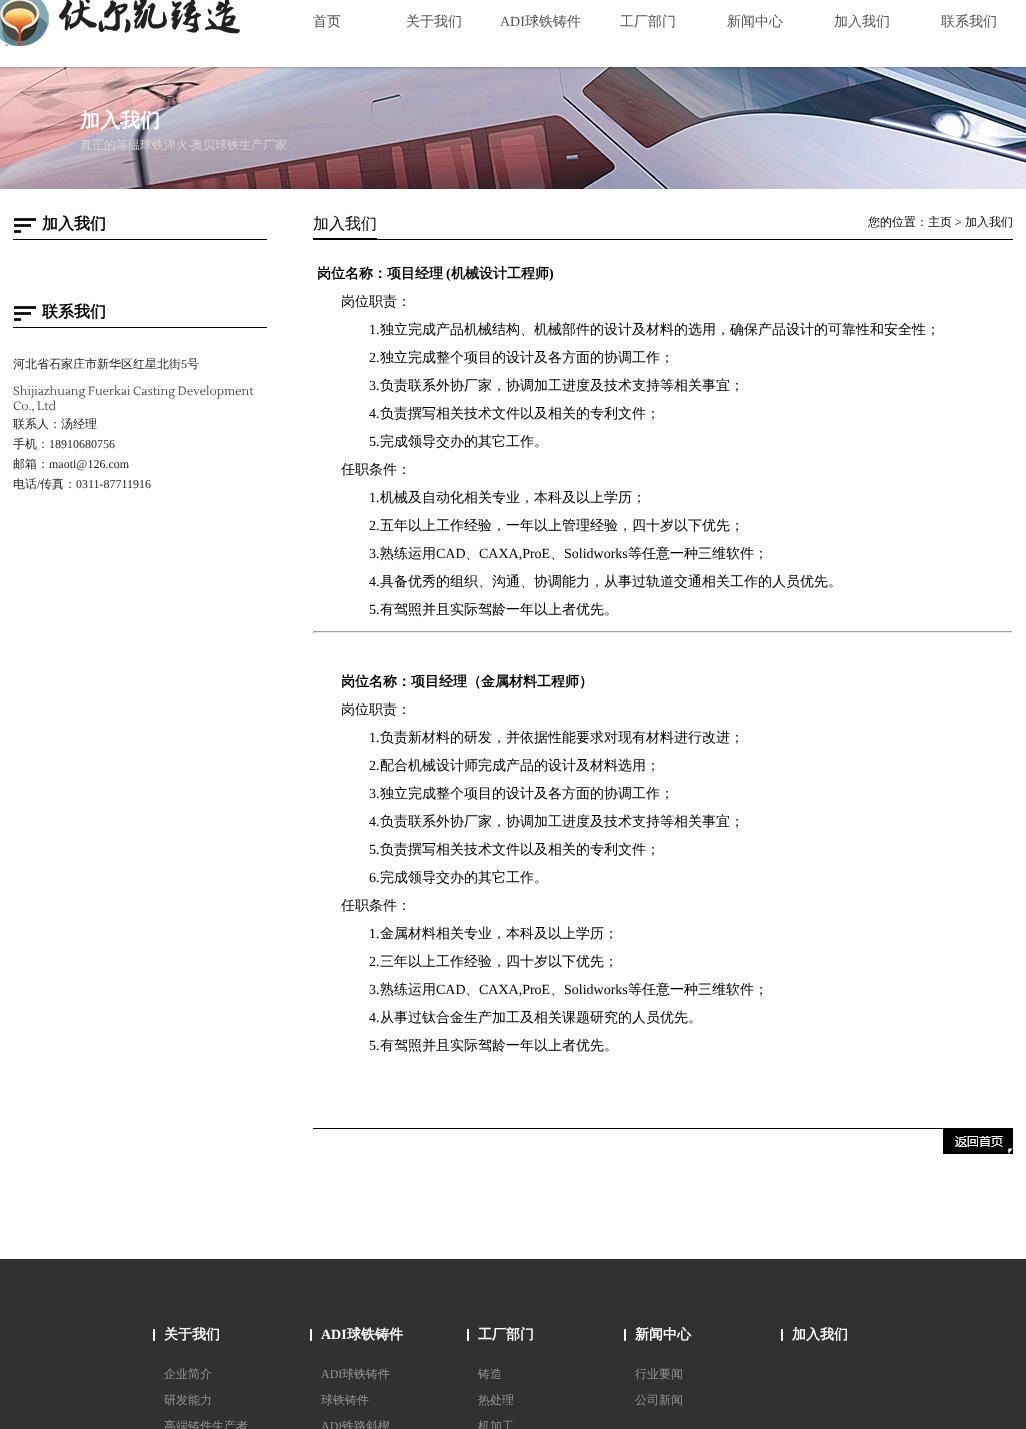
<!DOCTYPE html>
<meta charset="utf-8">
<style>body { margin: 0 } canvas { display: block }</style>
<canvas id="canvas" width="1026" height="1429"></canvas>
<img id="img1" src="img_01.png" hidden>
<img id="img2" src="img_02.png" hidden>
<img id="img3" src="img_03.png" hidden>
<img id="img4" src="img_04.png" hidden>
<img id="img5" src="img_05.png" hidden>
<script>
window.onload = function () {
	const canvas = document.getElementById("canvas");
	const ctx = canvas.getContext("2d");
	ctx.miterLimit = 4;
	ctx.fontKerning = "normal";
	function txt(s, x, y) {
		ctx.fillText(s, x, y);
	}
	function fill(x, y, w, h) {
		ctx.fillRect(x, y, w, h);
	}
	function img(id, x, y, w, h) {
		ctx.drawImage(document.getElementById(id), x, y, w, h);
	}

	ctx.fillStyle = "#FFFFFF";
	fill(0, 0, 1026, 1429);
	img("img1", 0, 0, 240, 46);
	img("img2", 0, 67, 1026, 122);
	img("img3", 13, 218, 254, 22);
	img("img3", 13, 306, 254, 22);
	img("img4", 313, 238, 700, 2);
	ctx.fillStyle = "#9F9F9F";
	fill(313, 631, 700, 1);
	ctx.fillStyle = "#EEEEEE";
	fill(1012, 631, 1, 2);
	fill(313, 632, 700, 1);
	ctx.fillStyle = "#9F9F9F";
	fill(313, 631, 1, 2);
	ctx.fillStyle = "#000000";
	fill(313, 1128, 700, 1);
	img("img5", 943, 1129, 70, 25);
	ctx.fillStyle = "#313131";
	fill(0, 1259, 1026, 170);
	ctx.fillStyle = "#FFFFFF";
	fill(153, 1329, 2, 12);
	fill(310, 1329, 2, 12);
	fill(467, 1329, 2, 12);
	fill(624, 1329, 2, 12);
	fill(781, 1329, 2, 12);
	ctx.font = "500 14px WenQuanYi Zen Hei";
	ctx.fillStyle = "#535353";
	txt("首页", 313, 26);
	txt("关于我们", 406, 26);
	ctx.font = "14px Liberation Serif";
	txt("ADI", 500, 26);
	ctx.font = "500 14px WenQuanYi Zen Hei";
	txt("球铁铸件", 525, 26);
	txt("工厂部门", 620, 26);
	txt("新闻中心", 727, 26);
	txt("加入我们", 834, 26);
	txt("联系我们", 941, 26);
	ctx.font = "bold 20px WenQuanYi Zen Hei";
	ctx.fillStyle = "#FFFFFF";
	txt("加入我们", 80, 127);
	ctx.font = "500 12px WenQuanYi Zen Hei";
	ctx.fillStyle = "#D5D5D5";
	txt("真正的等温球铁淬火", 80, 149);
	ctx.font = "12px Liberation Serif";
	txt("-", 188, 149);
	ctx.font = "500 12px WenQuanYi Zen Hei";
	txt("奥贝球铁生产厂家", 191, 149);
	ctx.font = "bold 16px WenQuanYi Zen Hei";
	ctx.fillStyle = "#000000";
	txt("加入我们", 42, 229);
	txt("联系我们", 42, 317);
	ctx.font = "500 12px WenQuanYi Zen Hei";
	ctx.fillStyle = "#1E1E1E";
	txt("河北省石家庄市新华区红星北街", 13, 368);
	ctx.font = "12px Liberation Serif";
	txt("5", 181, 368);
	ctx.font = "500 12px WenQuanYi Zen Hei";
	txt("号", 187, 368);
	ctx.font = "12px Lustria";
	ctx.fillStyle = "#484848";
	txt("Shijiazhuang Fuerkai Casting Development", 13, 395);
	txt("Co., Ltd", 13, 410);
	ctx.font = "500 12px WenQuanYi Zen Hei";
	ctx.fillStyle = "#1E1E1E";
	txt("联系人：汤经理", 13, 428);
	txt("手机：", 13, 448);
	ctx.font = "12px Liberation Serif";
	txt("18910680756", 49, 448);
	ctx.font = "500 12px WenQuanYi Zen Hei";
	txt("邮箱：", 13, 468);
	ctx.font = "12px Liberation Serif";
	txt("maotl@126.com", 49, 468);
	ctx.font = "500 12px WenQuanYi Zen Hei";
	txt("电话", 13, 488);
	ctx.font = "12px Liberation Serif";
	txt("/", 37, 488);
	ctx.font = "500 12px WenQuanYi Zen Hei";
	txt("传真：", 40, 488);
	ctx.font = "12px Liberation Serif";
	txt("0311-87711916", 76, 488);
	ctx.font = "500 16px WenQuanYi Zen Hei";
	ctx.fillStyle = "#000000";
	txt("加入我们", 313, 229);
	ctx.font = "500 12px WenQuanYi Zen Hei";
	txt("您的位置：主页", 868, 226);
	ctx.font = "12px Liberation Serif";
	txt(">", 955, 226);
	ctx.font = "500 12px WenQuanYi Zen Hei";
	txt("加入我们", 965, 226);
	ctx.font = "bold 14px WenQuanYi Zen Hei";
	txt("岗位名称：项目经理", 317, 278);
	ctx.font = "bold 14px Liberation Serif";
	txt("(", 446, 278);
	ctx.font = "bold 14px WenQuanYi Zen Hei";
	txt("机械设计工程师", 451, 278);
	ctx.font = "bold 14px Liberation Serif";
	txt(")", 549, 278);
	ctx.font = "500 14px WenQuanYi Zen Hei";
	txt("岗位职责：", 341, 306);
	ctx.font = "14px Liberation Serif";
	txt("1.", 369, 334);
	ctx.font = "500 14px WenQuanYi Zen Hei";
	txt("独立完成产品机械结构、机械部件的设计及材料的选用，确保产品设计的可靠性和安全性；", 380, 334);
	ctx.font = "14px Liberation Serif";
	txt("2.", 369, 362);
	ctx.font = "500 14px WenQuanYi Zen Hei";
	txt("独立完成整个项目的设计及各方面的协调工作；", 380, 362);
	ctx.font = "14px Liberation Serif";
	txt("3.", 369, 390);
	ctx.font = "500 14px WenQuanYi Zen Hei";
	txt("负责联系外协厂家，协调加工进度及技术支持等相关事宜；", 380, 390);
	ctx.font = "14px Liberation Serif";
	txt("4.", 369, 418);
	ctx.font = "500 14px WenQuanYi Zen Hei";
	txt("负责撰写相关技术文件以及相关的专利文件；", 380, 418);
	ctx.font = "14px Liberation Serif";
	txt("5.", 369, 446);
	ctx.font = "500 14px WenQuanYi Zen Hei";
	txt("完成领导交办的其它工作。", 380, 446);
	txt("任职条件：", 341, 474);
	ctx.font = "14px Liberation Serif";
	txt("1.", 369, 502);
	ctx.font = "500 14px WenQuanYi Zen Hei";
	txt("机械及自动化相关专业，本科及以上学历；", 380, 502);
	ctx.font = "14px Liberation Serif";
	txt("2.", 369, 530);
	ctx.font = "500 14px WenQuanYi Zen Hei";
	txt("五年以上工作经验，一年以上管理经验，四十岁以下优先；", 380, 530);
	ctx.font = "14px Liberation Serif";
	txt("3.", 369, 558);
	ctx.font = "500 14px WenQuanYi Zen Hei";
	txt("熟练运用", 380, 558);
	ctx.font = "14px Liberation Serif";
	txt("CAD", 436, 558);
	ctx.font = "500 14px WenQuanYi Zen Hei";
	txt("、", 465, 558);
	ctx.font = "14px Liberation Serif";
	txt("CAXA,ProE", 479, 558);
	ctx.font = "500 14px WenQuanYi Zen Hei";
	txt("、", 550, 558);
	ctx.font = "14px Liberation Serif";
	txt("Solidworks", 564, 558);
	ctx.font = "500 14px WenQuanYi Zen Hei";
	txt("等任意一种三维软件；", 628, 558);
	ctx.font = "14px Liberation Serif";
	txt("4.", 369, 586);
	ctx.font = "500 14px WenQuanYi Zen Hei";
	txt("具备优秀的组织、沟通、协调能力，从事过轨道交通相关工作的人员优先。", 380, 586);
	ctx.font = "14px Liberation Serif";
	txt("5.", 369, 614);
	ctx.font = "500 14px WenQuanYi Zen Hei";
	txt("有驾照并且实际驾龄一年以上者优先。", 380, 614);
	ctx.font = "bold 14px WenQuanYi Zen Hei";
	txt("岗位名称：项目经理（金属材料工程师）", 341, 686);
	ctx.font = "500 14px WenQuanYi Zen Hei";
	txt("岗位职责：", 341, 714);
	ctx.font = "14px Liberation Serif";
	txt("1.", 369, 742);
	ctx.font = "500 14px WenQuanYi Zen Hei";
	txt("负责新材料的研发，并依据性能要求对现有材料进行改进；", 380, 742);
	ctx.font = "14px Liberation Serif";
	txt("2.", 369, 770);
	ctx.font = "500 14px WenQuanYi Zen Hei";
	txt("配合机械设计师完成产品的设计及材料选用；", 380, 770);
	ctx.font = "14px Liberation Serif";
	txt("3.", 369, 798);
	ctx.font = "500 14px WenQuanYi Zen Hei";
	txt("独立完成整个项目的设计及各方面的协调工作；", 380, 798);
	ctx.font = "14px Liberation Serif";
	txt("4.", 369, 826);
	ctx.font = "500 14px WenQuanYi Zen Hei";
	txt("负责联系外协厂家，协调加工进度及技术支持等相关事宜；", 380, 826);
	ctx.font = "14px Liberation Serif";
	txt("5.", 369, 854);
	ctx.font = "500 14px WenQuanYi Zen Hei";
	txt("负责撰写相关技术文件以及相关的专利文件；", 380, 854);
	ctx.font = "14px Liberation Serif";
	txt("6.", 369, 882);
	ctx.font = "500 14px WenQuanYi Zen Hei";
	txt("完成领导交办的其它工作。", 380, 882);
	txt("任职条件：", 341, 910);
	ctx.font = "14px Liberation Serif";
	txt("1.", 369, 938);
	ctx.font = "500 14px WenQuanYi Zen Hei";
	txt("金属材料相关专业，本科及以上学历；", 380, 938);
	ctx.font = "14px Liberation Serif";
	txt("2.", 369, 966);
	ctx.font = "500 14px WenQuanYi Zen Hei";
	txt("三年以上工作经验，四十岁以下优先；", 380, 966);
	ctx.font = "14px Liberation Serif";
	txt("3.", 369, 994);
	ctx.font = "500 14px WenQuanYi Zen Hei";
	txt("熟练运用", 380, 994);
	ctx.font = "14px Liberation Serif";
	txt("CAD", 436, 994);
	ctx.font = "500 14px WenQuanYi Zen Hei";
	txt("、", 465, 994);
	ctx.font = "14px Liberation Serif";
	txt("CAXA,ProE", 479, 994);
	ctx.font = "500 14px WenQuanYi Zen Hei";
	txt("、", 550, 994);
	ctx.font = "14px Liberation Serif";
	txt("Solidworks", 564, 994);
	ctx.font = "500 14px WenQuanYi Zen Hei";
	txt("等任意一种三维软件；", 628, 994);
	ctx.font = "14px Liberation Serif";
	txt("4.", 369, 1022);
	ctx.font = "500 14px WenQuanYi Zen Hei";
	txt("从事过钛合金生产加工及相关课题研究的人员优先。", 380, 1022);
	ctx.font = "14px Liberation Serif";
	txt("5.", 369, 1050);
	ctx.font = "500 14px WenQuanYi Zen Hei";
	txt("有驾照并且实际驾龄一年以上者优先。", 380, 1050);
	ctx.font = "bold 14px WenQuanYi Zen Hei";
	ctx.fillStyle = "#FFFFFF";
	txt("关于我们", 164, 1339);
	ctx.font = "500 12px WenQuanYi Zen Hei";
	ctx.fillStyle = "#939393";
	txt("企业简介", 164, 1378);
	txt("研发能力", 164, 1404);
	txt("高端铸件生产者", 164, 1430);
	ctx.font = "bold 14px Liberation Serif";
	ctx.fillStyle = "#FFFFFF";
	txt("ADI", 321, 1339);
	ctx.font = "bold 14px WenQuanYi Zen Hei";
	txt("球铁铸件", 347, 1339);
	ctx.font = "12px Liberation Serif";
	ctx.fillStyle = "#939393";
	txt("ADI", 321, 1378);
	ctx.font = "500 12px WenQuanYi Zen Hei";
	txt("球铁铸件", 342, 1378);
	txt("球铁铸件", 321, 1404);
	ctx.font = "12px Liberation Serif";
	txt("ADI", 321, 1430);
	ctx.font = "500 12px WenQuanYi Zen Hei";
	txt("铁路斜楔", 342, 1430);
	ctx.font = "bold 14px WenQuanYi Zen Hei";
	ctx.fillStyle = "#FFFFFF";
	txt("工厂部门", 478, 1339);
	ctx.font = "500 12px WenQuanYi Zen Hei";
	ctx.fillStyle = "#939393";
	txt("铸造", 478, 1378);
	txt("热处理", 478, 1404);
	txt("机加工", 478, 1430);
	ctx.font = "bold 14px WenQuanYi Zen Hei";
	ctx.fillStyle = "#FFFFFF";
	txt("新闻中心", 635, 1339);
	ctx.font = "500 12px WenQuanYi Zen Hei";
	ctx.fillStyle = "#939393";
	txt("行业要闻", 635, 1378);
	txt("公司新闻", 635, 1404);
	ctx.font = "bold 14px WenQuanYi Zen Hei";
	ctx.fillStyle = "#FFFFFF";
	txt("加入我们", 792, 1339);
};
</script>
